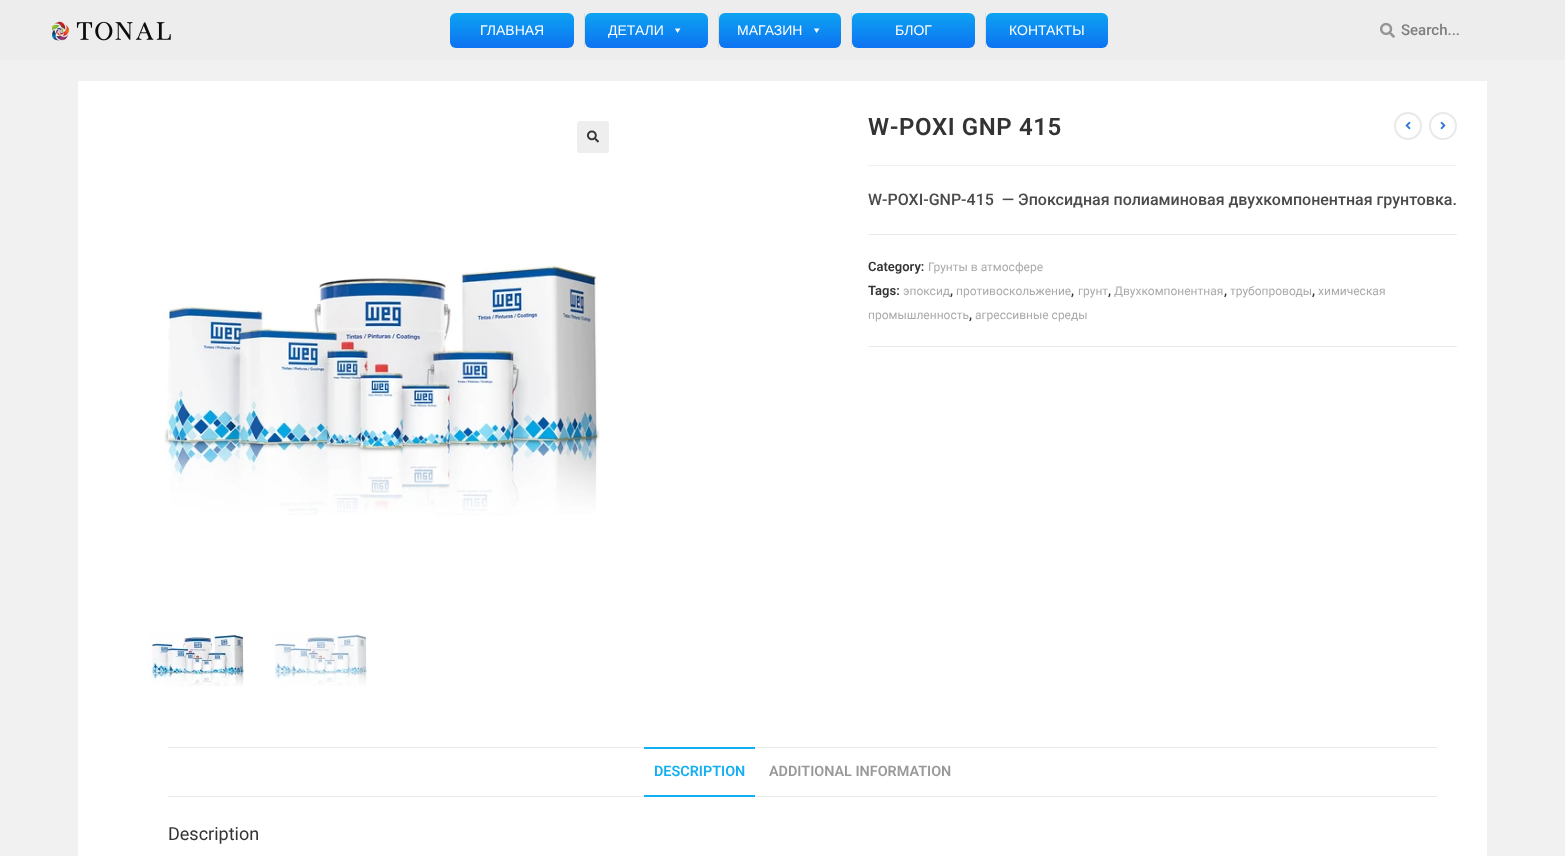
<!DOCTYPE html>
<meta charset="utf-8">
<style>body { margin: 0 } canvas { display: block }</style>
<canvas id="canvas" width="1565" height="856"></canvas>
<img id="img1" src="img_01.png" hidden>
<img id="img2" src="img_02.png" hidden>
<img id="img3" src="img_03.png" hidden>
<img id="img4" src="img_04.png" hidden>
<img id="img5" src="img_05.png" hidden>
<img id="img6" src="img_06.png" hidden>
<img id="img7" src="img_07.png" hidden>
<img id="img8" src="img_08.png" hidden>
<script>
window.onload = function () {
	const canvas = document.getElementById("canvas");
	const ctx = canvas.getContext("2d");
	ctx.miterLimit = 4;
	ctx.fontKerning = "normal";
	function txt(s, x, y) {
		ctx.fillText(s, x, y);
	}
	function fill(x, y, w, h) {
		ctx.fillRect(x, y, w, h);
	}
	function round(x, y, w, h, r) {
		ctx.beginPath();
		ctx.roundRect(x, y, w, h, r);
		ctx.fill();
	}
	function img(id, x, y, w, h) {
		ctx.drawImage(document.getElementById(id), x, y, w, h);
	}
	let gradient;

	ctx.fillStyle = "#F1F1F1";
	fill(0, 0, 1565, 856);
	ctx.fillStyle = "#EDEDED";
	fill(0, 0, 1565, 60);
	img("img1", 52, 21, 119, 20);
	gradient = ctx.createLinearGradient(512, 13, 512, 48);
	gradient.addColorStop(0, "#0DA3F2");
	gradient.addColorStop(1, "#0D72F2");
	ctx.fillStyle = gradient;
	round(450, 13, 124, 35, 6);
	ctx.fillStyle = "#F1F1F1";
	fill(585, 13, 1, 35);
	ctx.fillStyle = "#DDDDDD";
	fill(584, 13, 1, 35);
	gradient = ctx.createLinearGradient(647, 13, 647, 48);
	gradient.addColorStop(0, "#0DA3F2");
	gradient.addColorStop(1, "#0D72F2");
	ctx.fillStyle = gradient;
	round(585, 13, 123, 35, 6);
	ctx.fillStyle = "#FFFFFF";
	ctx.beginPath();
	ctx.moveTo(680.5, 28.5);
	ctx.lineTo(677.5, 33);
	ctx.lineTo(675, 28.5);
	ctx.closePath();
	ctx.fill();
	ctx.fillStyle = "#F1F1F1";
	fill(719, 13, 1, 35);
	ctx.fillStyle = "#DDDDDD";
	fill(718, 13, 1, 35);
	gradient = ctx.createLinearGradient(780, 13, 780, 48);
	gradient.addColorStop(0, "#0DA3F2");
	gradient.addColorStop(1, "#0D72F2");
	ctx.fillStyle = gradient;
	round(719, 13, 122, 35, 6);
	ctx.fillStyle = "#FFFFFF";
	ctx.beginPath();
	ctx.moveTo(819.5, 28.5);
	ctx.lineTo(816.5, 33);
	ctx.lineTo(814, 28.5);
	ctx.closePath();
	ctx.fill();
	ctx.fillStyle = "#F1F1F1";
	fill(852, 13, 1, 35);
	ctx.fillStyle = "#DDDDDD";
	fill(851, 13, 1, 35);
	gradient = ctx.createLinearGradient(914, 13, 914, 48);
	gradient.addColorStop(0, "#0DA3F2");
	gradient.addColorStop(1, "#0D72F2");
	ctx.fillStyle = gradient;
	round(852, 13, 123, 35, 6);
	ctx.fillStyle = "#F1F1F1";
	fill(986, 13, 1, 35);
	ctx.fillStyle = "#DDDDDD";
	fill(985, 13, 1, 35);
	gradient = ctx.createLinearGradient(1047, 13, 1047, 48);
	gradient.addColorStop(0, "#0DA3F2");
	gradient.addColorStop(1, "#0D72F2");
	ctx.fillStyle = gradient;
	round(986, 13, 122, 35, 6);
	img("img2", 1380, 22, 15, 16);
	ctx.fillStyle = "#FFFFFF";
	fill(78, 81, 1409, 775);
	ctx.beginPath();
	ctx.arc(1408, 126, 13, 0, Math.PI * 2);
	ctx.strokeStyle = "#E9E9E9";
	ctx.lineWidth = 2;
	ctx.stroke();
	img("img3", 1405, 121, 6, 9);
	ctx.beginPath();
	ctx.arc(1443, 126, 13, 0, Math.PI * 2);
	ctx.stroke();
	img("img4", 1440, 121, 6, 9);
	ctx.fillStyle = "#EEEEEE";
	round(577, 121, 32, 32, 3);
	img("img5", 587, 130, 12, 13);
	img("img6", 164, 265, 436, 250);
	img("img7", 148, 634, 97, 53);
	img("img8", 274, 634, 93, 52);
	ctx.fillStyle = "#F1F1F1";
	fill(868, 165, 589, 1);
	ctx.fillStyle = "#EAEAEA";
	fill(868, 234, 589, 1);
	fill(868, 346, 589, 1);
	fill(168, 747, 1269, 1);
	fill(168, 796, 1269, 1);
	ctx.fillStyle = "#13AFF0";
	fill(644, 747, 111, 2);
	fill(644, 795, 111, 2);
	ctx.font = "14px Liberation Sans";
	ctx.fillStyle = "#FFFFFF";
	txt("ГЛАВНАЯ", 480, 35);
	txt("ДЕТАЛИ", 608, 35);
	txt("МАГАЗИН", 737, 35);
	txt("БЛОГ", 895, 35);
	txt("КОНТАКТЫ", 1009, 35);
	ctx.font = "500 15px Roboto";
	ctx.fillStyle = "#7D7E7E";
	txt("Search...", 1401, 35);
	ctx.letterSpacing = "0.6px";
	ctx.font = "600 24px Roboto";
	ctx.fillStyle = "#333333";
	txt("W-POXI GNP 415", 868, 135);
	ctx.letterSpacing = "0px";
	ctx.font = "500 16px Roboto";
	ctx.fillStyle = "#4A4A4A";
	txt("W-POXI-GNP-415  — Эпоксидная полиаминовая двухкомпонентная грунтовка.", 868, 205);
	ctx.font = "600 13px Roboto";
	ctx.fillStyle = "#333333";
	txt("Category:", 868, 271);
	ctx.font = "12px Roboto";
	ctx.fillStyle = "#ABABAB";
	txt("Грунты в атмосфере", 928, 271);
	ctx.font = "600 13px Roboto";
	ctx.fillStyle = "#333333";
	txt("Tags:", 868, 295);
	ctx.font = "12px Roboto";
	ctx.fillStyle = "#ABABAB";
	txt("эпоксид", 903, 295);
	ctx.font = "600 13px Roboto";
	ctx.fillStyle = "#333333";
	txt(",", 950, 295);
	ctx.font = "12px Roboto";
	ctx.fillStyle = "#ABABAB";
	txt("противоскольжение", 956, 295);
	ctx.font = "600 13px Roboto";
	ctx.fillStyle = "#333333";
	txt(",", 1071, 295);
	ctx.font = "12px Roboto";
	ctx.fillStyle = "#ABABAB";
	txt("грунт", 1078, 295);
	ctx.font = "600 13px Roboto";
	ctx.fillStyle = "#333333";
	txt(",", 1108, 295);
	ctx.font = "12px Roboto";
	ctx.fillStyle = "#ABABAB";
	txt("Двухкомпонентная", 1114, 295);
	ctx.font = "600 13px Roboto";
	ctx.fillStyle = "#333333";
	txt(",", 1224, 295);
	ctx.font = "12px Roboto";
	ctx.fillStyle = "#ABABAB";
	txt("трубопроводы", 1230, 295);
	ctx.font = "600 13px Roboto";
	ctx.fillStyle = "#333333";
	txt(",", 1312, 295);
	ctx.font = "12px Roboto";
	ctx.fillStyle = "#ABABAB";
	txt("химическая", 1318, 295);
	txt("промышленность", 868, 319);
	ctx.font = "600 13px Roboto";
	ctx.fillStyle = "#333333";
	txt(",", 969, 319);
	ctx.font = "12px Roboto";
	ctx.fillStyle = "#ABABAB";
	txt("агрессивные среды", 975, 319);
	ctx.font = "600 14.4px Roboto";
	ctx.fillStyle = "#13AFF0";
	txt("DESCRIPTION", 654, 776);
	ctx.fillStyle = "#999999";
	txt("ADDITIONAL INFORMATION", 769, 776);
	ctx.font = "18px Roboto";
	ctx.fillStyle = "#333333";
	txt("Description", 168, 840);
};
</script>
